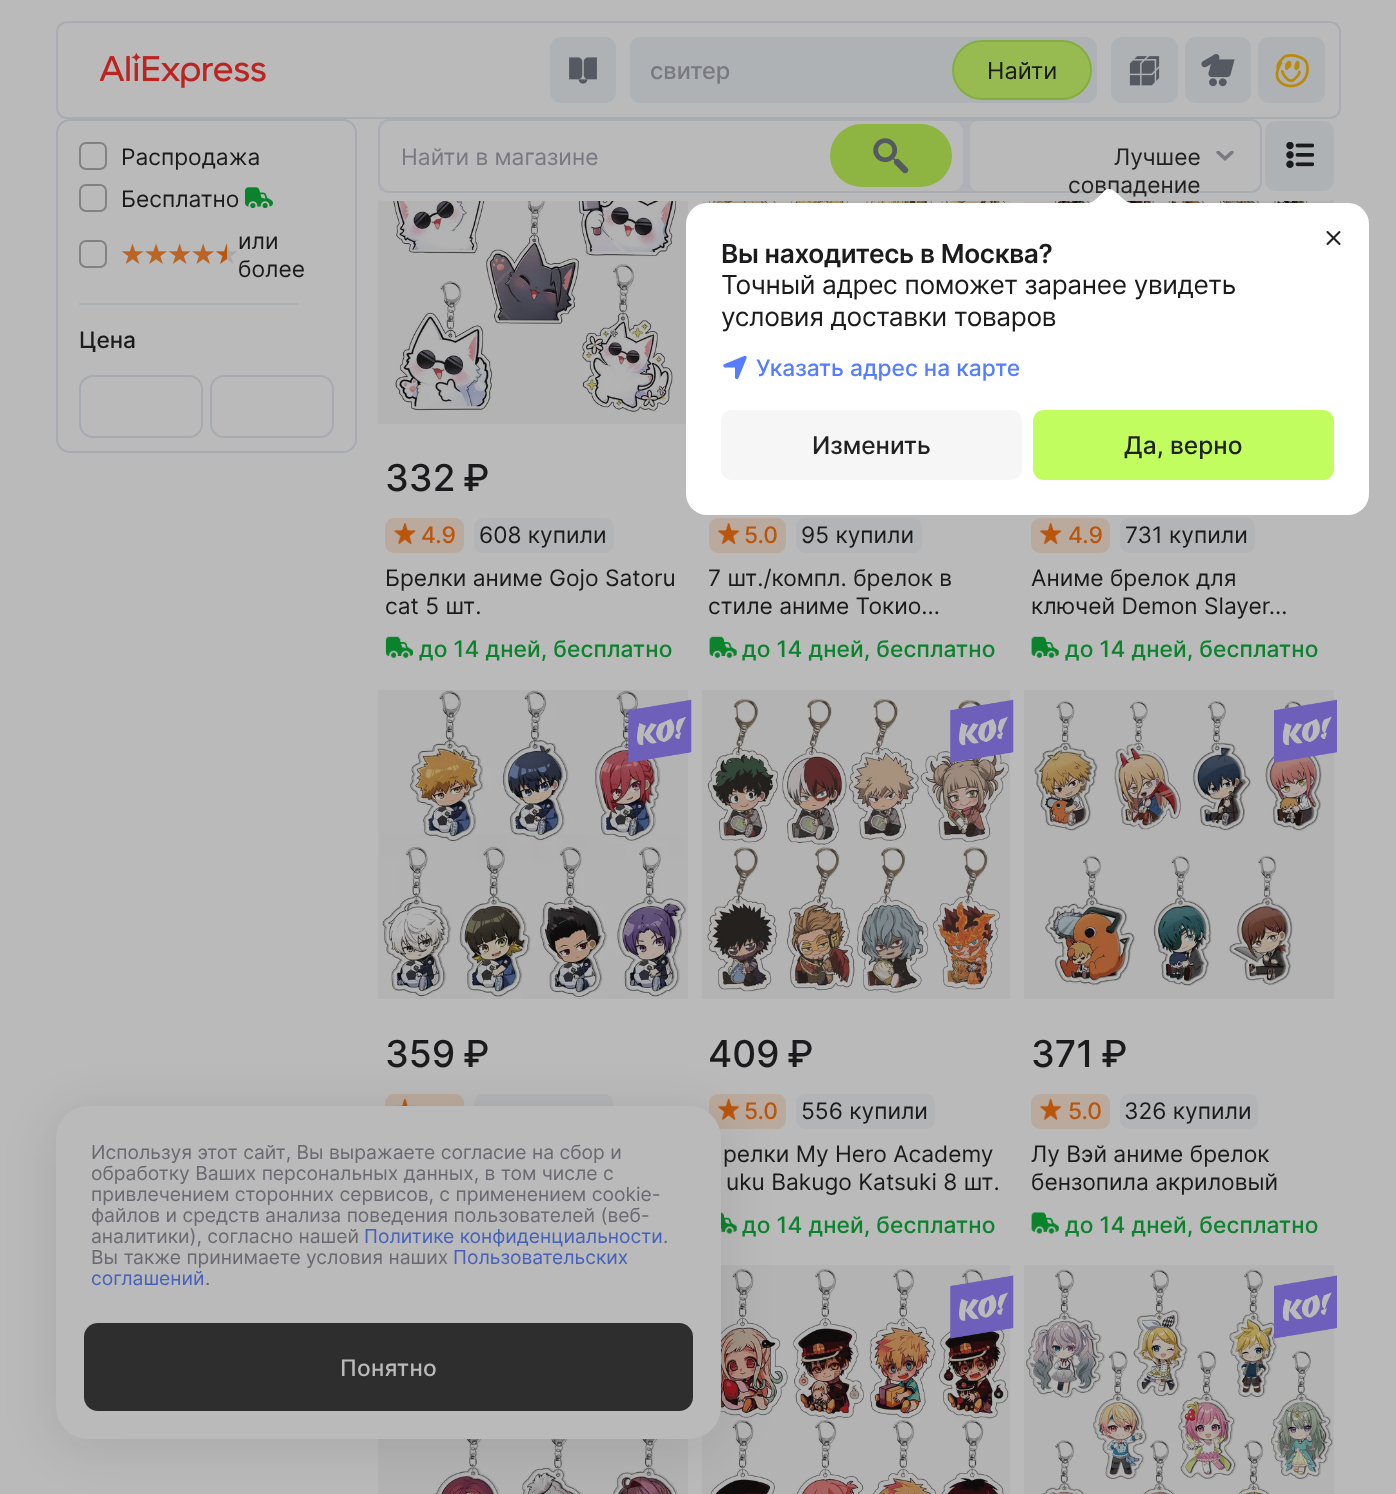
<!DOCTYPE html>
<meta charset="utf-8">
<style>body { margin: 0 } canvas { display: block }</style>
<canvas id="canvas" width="1396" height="1494"></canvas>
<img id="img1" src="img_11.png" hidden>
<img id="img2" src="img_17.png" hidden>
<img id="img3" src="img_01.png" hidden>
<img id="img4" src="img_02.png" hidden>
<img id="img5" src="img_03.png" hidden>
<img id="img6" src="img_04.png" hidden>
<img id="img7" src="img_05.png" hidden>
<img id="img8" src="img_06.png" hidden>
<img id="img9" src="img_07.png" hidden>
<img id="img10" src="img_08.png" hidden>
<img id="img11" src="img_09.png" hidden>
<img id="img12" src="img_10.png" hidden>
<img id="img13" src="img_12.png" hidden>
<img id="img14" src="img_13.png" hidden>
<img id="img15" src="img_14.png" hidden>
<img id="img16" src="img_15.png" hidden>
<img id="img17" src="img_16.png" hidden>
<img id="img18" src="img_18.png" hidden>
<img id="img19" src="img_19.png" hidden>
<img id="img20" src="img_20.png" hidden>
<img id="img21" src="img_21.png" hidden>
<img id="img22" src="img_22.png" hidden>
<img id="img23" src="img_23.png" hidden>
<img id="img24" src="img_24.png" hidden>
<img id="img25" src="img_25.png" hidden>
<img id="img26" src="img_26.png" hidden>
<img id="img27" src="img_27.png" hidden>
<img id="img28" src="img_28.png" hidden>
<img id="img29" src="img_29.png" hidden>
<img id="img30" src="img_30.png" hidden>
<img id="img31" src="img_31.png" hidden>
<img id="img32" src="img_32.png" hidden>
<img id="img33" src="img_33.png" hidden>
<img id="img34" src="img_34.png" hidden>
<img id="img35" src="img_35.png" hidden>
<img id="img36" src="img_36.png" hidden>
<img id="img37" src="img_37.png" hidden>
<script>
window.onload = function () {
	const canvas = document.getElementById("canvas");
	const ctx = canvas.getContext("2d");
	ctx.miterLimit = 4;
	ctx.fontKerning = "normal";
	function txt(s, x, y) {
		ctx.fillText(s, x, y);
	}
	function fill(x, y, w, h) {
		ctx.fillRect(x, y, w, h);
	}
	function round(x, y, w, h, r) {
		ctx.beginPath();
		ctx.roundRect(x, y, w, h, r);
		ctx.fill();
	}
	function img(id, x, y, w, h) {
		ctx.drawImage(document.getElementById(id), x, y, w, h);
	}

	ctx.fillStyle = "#BABABA";
	fill(0, 0, 1396, 1494);
	img("img1", 391, 201, 286, 212);
	ctx.fillStyle = "rgba(27, 27, 29, 0.04)";
	fill(378, 119, 310, 305);
	img("img2", 1027, 199, 306, 4);
	fill(1024, 119, 310, 84);
	ctx.fillStyle = "#BABABA";
	ctx.beginPath();
	ctx.moveTo(385, 28);
	ctx.bezierCurveTo(373, 28, 364, 37, 364, 49);
	ctx.lineTo(364, 103);
	ctx.bezierCurveTo(364, 111, 369, 119, 376, 122);
	ctx.bezierCurveTo(379, 120, 382, 119, 385, 119);
	ctx.lineTo(1326, 119);
	ctx.bezierCurveTo(1330, 119, 1333, 120, 1335, 122);
	ctx.bezierCurveTo(1343, 119, 1348, 112, 1348, 103);
	ctx.lineTo(1348, 49);
	ctx.bezierCurveTo(1348, 37, 1339, 28, 1327, 28);
	ctx.closePath();
	ctx.fill();
	ctx.beginPath();
	ctx.roundRect(57, 22, 1283, 96, 10);
	ctx.strokeStyle = "#A9ACB0";
	ctx.lineWidth = 2;
	ctx.stroke();
	img("img3", 100, 53, 166, 35);
	ctx.fillStyle = "#AFB2B4";
	round(550, 37, 66, 66, 11);
	img("img4", 569, 57, 28, 27);
	round(630, 37, 467, 66, 11);
	round(630, 37, 322, 66, 11);
	ctx.fillStyle = "#97BA51";
	ctx.beginPath();
	ctx.roundRect(953, 41, 138, 58, 29);
	ctx.fill();
	ctx.strokeStyle = "#85AE42";
	ctx.stroke();
	ctx.fillStyle = "#AFB2B4";
	round(1111, 37, 67, 66, 11);
	img("img5", 1129, 56, 31, 30);
	round(1185, 37, 66, 66, 11);
	img("img6", 1201, 54, 34, 33);
	round(1258, 37, 67, 66, 11);
	img("img7", 1275, 54, 34, 34);
	ctx.beginPath();
	ctx.roundRect(57, 120, 299, 332, 13);
	ctx.strokeStyle = "#A7ABAF";
	ctx.stroke();
	ctx.beginPath();
	ctx.roundRect(80, 143, 26, 26, 6);
	ctx.strokeStyle = "#808284";
	ctx.stroke();
	ctx.beginPath();
	ctx.roundRect(80, 185, 26, 26, 6);
	ctx.stroke();
	img("img8", 245, 187, 28, 21);
	ctx.beginPath();
	ctx.roundRect(80, 241, 26, 26, 6);
	ctx.stroke();
	img("img9", 121, 243, 117, 21);
	fill(79, 303, 220, 2);
	ctx.beginPath();
	ctx.roundRect(80, 376, 122, 61, 13);
	ctx.strokeStyle = "#A7ABAF";
	ctx.stroke();
	ctx.beginPath();
	ctx.roundRect(211, 376, 122, 61, 13);
	ctx.stroke();
	ctx.fillStyle = "#BABABA";
	round(371, 119, 970, 82, 14);
	ctx.beginPath();
	ctx.roundRect(379, 120, 882, 72, 10);
	ctx.strokeStyle = "#A9ACB0";
	ctx.stroke();
	ctx.fillStyle = "#B0B1B8";
	fill(380, 121, 598, 70);
	ctx.fillStyle = "#BABABA";
	round(380, 121, 583, 70, 11);
	ctx.fillStyle = "#8EB442";
	round(830, 124, 122, 63, 31.5);
	img("img10", 873, 138, 36, 36);
	ctx.fillStyle = "#BABABA";
	ctx.beginPath();
	ctx.roundRect(970, 121, 8, 70, [8, 0, 0, 8]);
	ctx.fill();
	img("img11", 1216, 151, 18, 10);
	ctx.fillStyle = "#AFB2B4";
	round(1265, 121, 69, 70, 11);
	img("img12", 1286, 142, 28, 26);
	ctx.fillStyle = "#BAA99D";
	round(385, 518, 79, 35, 9);
	img("img13", 394, 523, 22, 21);
	ctx.fillStyle = "#B2B4B6";
	round(474, 518, 140, 35, 9);
	img("img14", 385, 636, 28, 22);
	img("img15", 702, 201, 307, 3);
	ctx.fillStyle = "rgba(27, 27, 29, 0.04)";
	fill(702, 201, 308, 3);
	ctx.fillStyle = "#BAA99D";
	round(709, 518, 77, 35, 9);
	img("img16", 718, 523, 22, 21);
	ctx.fillStyle = "#B2B4B6";
	round(796, 518, 126, 35, 9);
	img("img17", 709, 636, 28, 22);
	ctx.fillStyle = "#BAA99D";
	round(1031, 518, 79, 35, 9);
	img("img18", 1040, 523, 22, 21);
	ctx.fillStyle = "#B2B4B6";
	round(1120, 518, 135, 35, 9);
	img("img19", 1031, 636, 28, 22);
	img("img20", 382, 690, 305, 309);
	ctx.fillStyle = "rgba(27, 27, 29, 0.04)";
	fill(378, 690, 310, 309);
	img("img21", 628, 699, 64, 64);
	ctx.fillStyle = "#BAA99D";
	round(385, 1094, 79, 35, 9);
	img("img22", 394, 1098, 21, 8);
	ctx.fillStyle = "#B2B4B6";
	round(474, 1094, 139, 35, 9);
	img("img23", 706, 698, 303, 296);
	ctx.fillStyle = "rgba(27, 27, 29, 0.04)";
	fill(702, 690, 308, 309);
	img("img24", 950, 699, 64, 64);
	ctx.fillStyle = "#BAA99D";
	round(709, 1094, 77, 35, 9);
	img("img25", 718, 1098, 22, 22);
	ctx.fillStyle = "#B2B4B6";
	round(796, 1094, 139, 35, 9);
	img("img26", 721, 1212, 16, 22);
	img("img27", 1034, 700, 288, 286);
	ctx.fillStyle = "rgba(27, 27, 29, 0.04)";
	fill(1024, 690, 310, 309);
	img("img28", 1274, 699, 63, 64);
	ctx.fillStyle = "#BAA99D";
	round(1031, 1094, 79, 35, 9);
	img("img29", 1040, 1098, 22, 22);
	ctx.fillStyle = "#B2B4B6";
	round(1120, 1094, 138, 35, 9);
	img("img30", 1031, 1212, 28, 22);
	img("img31", 396, 1439, 283, 55);
	ctx.fillStyle = "rgba(27, 27, 29, 0.04)";
	fill(378, 1439, 310, 55);
	img("img32", 702, 1268, 308, 226);
	fill(702, 1265, 308, 229);
	img("img33", 950, 1275, 64, 64);
	img("img34", 1025, 1269, 308, 225);
	fill(1024, 1265, 310, 229);
	img("img35", 1274, 1275, 63, 64);
	ctx.fillStyle = "rgba(11, 11, 11, 0.1)";
	ctx.filter = "blur(26px)";
	ctx.beginPath();
	ctx.roundRect(56, 1113, 665, 333, 32);
	ctx.fill();
	ctx.filter = "none";
	ctx.fillStyle = "#BABABA";
	round(56, 1106, 665, 333, 32);
	ctx.fillStyle = "#2E2E2E";
	round(84, 1323, 609, 88, 14);
	ctx.fillStyle = "#FFFFFF";
	round(686, 203, 683, 312, 21);
	img("img36", 1326, 231, 15, 14);
	img("img37", 723, 355, 24, 25);
	ctx.fillStyle = "#F6F6F6";
	round(721, 410, 301, 70, 11);
	ctx.fillStyle = "#C2FD60";
	round(1033, 410, 301, 70, 11);
	ctx.font = "500 23.5px Inter";
	ctx.fillStyle = "#797981";
	txt("свитер", 650, 79);
	ctx.font = "23.5px Inter";
	ctx.fillStyle = "#1B1B1D";
	txt("Найти", 987, 79);
	ctx.font = "22.75px Inter";
	txt("Распродажа", 121, 165);
	txt("Бесплатно", 121, 207);
	txt("или", 238, 249);
	txt("более", 238, 277);
	ctx.font = "500 22.75px Inter";
	txt("Цена", 79, 348);
	ctx.font = "22.75px Inter";
	ctx.fillStyle = "#797981";
	txt("Найти в магазине", 401, 165);
	ctx.fillStyle = "#222222";
	txt("Лучшее", 1114, 165);
	txt("совпадение", 1068, 193);
	ctx.font = "500 37px Inter";
	ctx.fillStyle = "#1B1B1D";
	txt("332", 385, 491);
	txt("₽", 463, 491);
	ctx.font = "500 22.75px Inter";
	ctx.fillStyle = "#BA550C";
	txt("4.9", 421, 543);
	ctx.font = "22.75px Inter";
	ctx.fillStyle = "#1B1B1D";
	txt("608 купили", 479, 543);
	txt("Брелки аниме Gojo Satoru", 385, 586);
	txt("cat 5 шт.", 385, 614);
	ctx.letterSpacing = "0.1px";
	ctx.font = "500 22.75px Inter";
	ctx.fillStyle = "#0B822C";
	txt("до 14 дней, бесплатно", 419, 657);
	ctx.letterSpacing = "0px";
	ctx.fillStyle = "#BA550C";
	txt("5.0", 744, 543);
	ctx.font = "22.75px Inter";
	ctx.fillStyle = "#1B1B1D";
	txt("95 купили", 801, 543);
	txt("7 шт./компл. брелок в", 708, 586);
	txt("стиле аниме Токио…", 708, 614);
	ctx.letterSpacing = "0.1px";
	ctx.font = "500 22.75px Inter";
	ctx.fillStyle = "#0B822C";
	txt("до 14 дней, бесплатно", 742, 657);
	ctx.letterSpacing = "0px";
	ctx.fillStyle = "#BA550C";
	txt("4.9", 1068, 543);
	ctx.font = "22.75px Inter";
	ctx.fillStyle = "#1B1B1D";
	txt("731 купили", 1125, 543);
	txt("Аниме брелок для", 1031, 586);
	txt("ключей Demon Slayer…", 1031, 614);
	ctx.letterSpacing = "0.1px";
	ctx.font = "500 22.75px Inter";
	ctx.fillStyle = "#0B822C";
	txt("до 14 дней, бесплатно", 1065, 657);
	ctx.letterSpacing = "0px";
	ctx.font = "500 37px Inter";
	ctx.fillStyle = "#1B1B1D";
	txt("359", 385, 1067);
	txt("₽", 463, 1067);
	txt("409", 708, 1067);
	txt("₽", 787, 1067);
	ctx.font = "500 22.75px Inter";
	ctx.fillStyle = "#BA550C";
	txt("5.0", 744, 1119);
	ctx.font = "22.75px Inter";
	ctx.fillStyle = "#1B1B1D";
	txt("556 купили", 801, 1119);
	txt("релки My Hero Academy", 723, 1162);
	txt("uku Bakugo Katsuki 8 шт.", 726, 1190);
	ctx.letterSpacing = "0.1px";
	ctx.font = "500 22.75px Inter";
	ctx.fillStyle = "#0B822C";
	txt("до 14 дней, бесплатно", 742, 1233);
	ctx.letterSpacing = "0px";
	ctx.font = "500 37px Inter";
	ctx.fillStyle = "#1B1B1D";
	txt("371", 1031, 1067);
	txt("₽", 1101, 1067);
	ctx.font = "500 22.75px Inter";
	ctx.fillStyle = "#BA550C";
	txt("5.0", 1068, 1119);
	ctx.font = "22.75px Inter";
	ctx.fillStyle = "#1B1B1D";
	txt("326 купили", 1124, 1119);
	txt("Лу Вэй аниме брелок", 1031, 1162);
	txt("бензопила акриловый", 1031, 1190);
	ctx.letterSpacing = "0.1px";
	ctx.font = "500 22.75px Inter";
	ctx.fillStyle = "#0B822C";
	txt("до 14 дней, бесплатно", 1065, 1233);
	ctx.letterSpacing = "0px";
	ctx.font = "19.25px Inter";
	ctx.fillStyle = "#696970";
	txt("Используя этот сайт, Вы выражаете согласие на сбор и", 91, 1159);
	txt("обработку Ваших персональных данных, в том числе с", 91, 1180);
	txt("привлечением сторонних сервисов, с применением cookie-", 91, 1201);
	txt("файлов и средств анализа поведения пользователей (веб-", 91, 1222);
	txt("аналитики), согласно нашей", 91, 1243);
	ctx.fillStyle = "#4561BA";
	txt("Политике конфиденциальности", 364, 1243);
	ctx.fillStyle = "#696970";
	txt(".", 663, 1243);
	txt("Вы также принимаете условия наших", 91, 1264);
	ctx.fillStyle = "#4561BA";
	txt("Пользовательских", 453, 1264);
	txt("соглашений", 91, 1285);
	ctx.fillStyle = "#696970";
	txt(".", 205, 1285);
	ctx.letterSpacing = "0.25px";
	ctx.font = "500 22.75px Inter";
	ctx.fillStyle = "#BABABA";
	txt("Понятно", 340, 1376);
	ctx.fillStyle = "#FFFFFF";
	ctx.beginPath();
	ctx.moveTo(1104, 191);
	ctx.bezierCurveTo(1101, 195, 1093, 203, 1088, 203);
	ctx.lineTo(1131, 203);
	ctx.bezierCurveTo(1122, 203, 1114, 183, 1104, 191);
	ctx.closePath();
	ctx.fill();
	ctx.letterSpacing = "-0.35px";
	ctx.font = "600 26.25px Inter";
	ctx.fillStyle = "#1B1B1D";
	txt("Вы находитесь в Москва?", 721, 263);
	ctx.font = "26.25px Inter";
	txt("Точный адрес поможет заранее увидеть", 721, 294);
	txt("условия доставки товаров", 721, 326);
	ctx.letterSpacing = "0px";
	ctx.font = "500 22.75px Inter";
	ctx.fillStyle = "#547DFF";
	txt("Указать адрес на карте", 756, 376);
	ctx.font = "500 24.5px Inter";
	ctx.fillStyle = "#222222";
	txt("Изменить", 812, 454);
	txt("Да, верно", 1124, 454);
};
</script>
